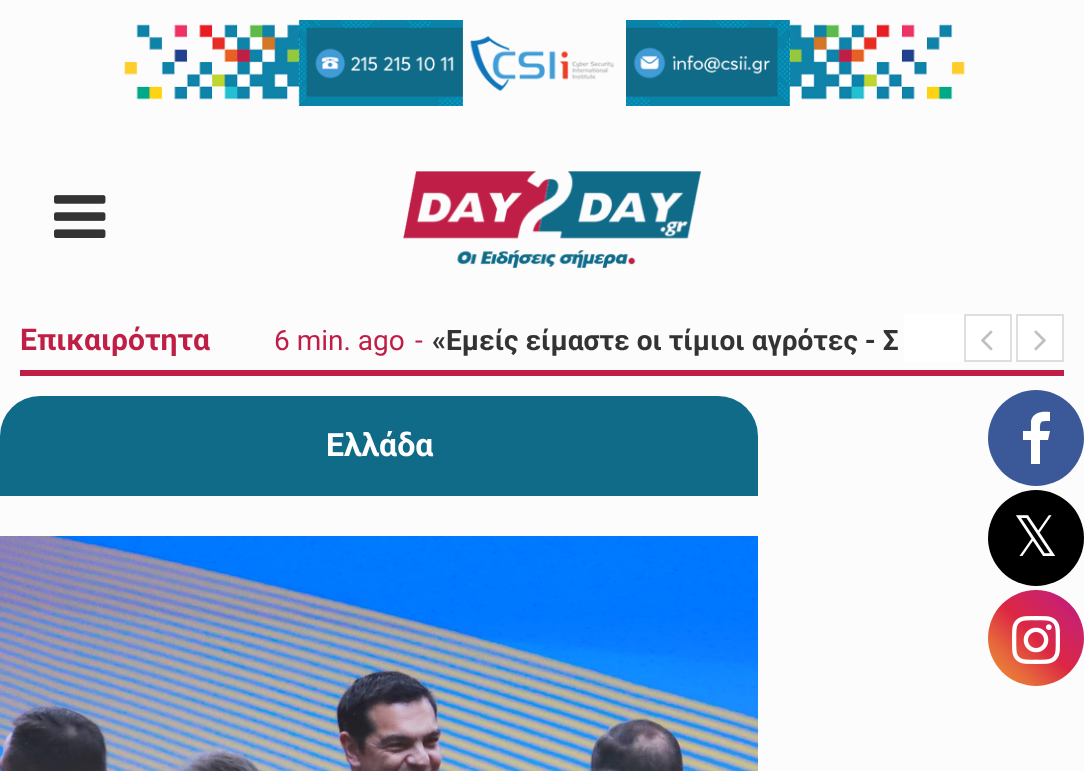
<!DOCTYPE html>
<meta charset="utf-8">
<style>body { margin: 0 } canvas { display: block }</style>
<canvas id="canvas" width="1084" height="771"></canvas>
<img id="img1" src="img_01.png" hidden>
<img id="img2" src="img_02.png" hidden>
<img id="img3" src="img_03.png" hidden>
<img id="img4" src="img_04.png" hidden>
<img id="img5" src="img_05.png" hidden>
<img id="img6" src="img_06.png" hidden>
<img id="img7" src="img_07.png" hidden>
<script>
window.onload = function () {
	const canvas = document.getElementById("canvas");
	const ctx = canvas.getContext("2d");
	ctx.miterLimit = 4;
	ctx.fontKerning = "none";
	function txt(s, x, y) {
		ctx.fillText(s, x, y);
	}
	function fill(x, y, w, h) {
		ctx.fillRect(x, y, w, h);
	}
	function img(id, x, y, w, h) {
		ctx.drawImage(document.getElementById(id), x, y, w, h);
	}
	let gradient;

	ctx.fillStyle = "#FCFCFC";
	fill(0, 0, 1084, 771);
	img("img1", 124, 20, 841, 86);
	img("img2", 54, 195, 52, 43);
	img("img3", 403, 171, 299, 97);
	ctx.fillStyle = "#BF1F46";
	fill(20, 370, 1044, 6);
	ctx.fillStyle = "#FFFFFF";
	fill(904, 314, 158, 48);
	ctx.strokeStyle = "#DEDEDE";
	ctx.lineWidth = 2;
	ctx.strokeRect(965, 315, 46, 46);
	img("img4", 981, 330, 12, 21);
	ctx.strokeRect(1017, 315, 46, 46);
	img("img5", 1034, 330, 12, 21);
	ctx.fillStyle = "#106B89";
	ctx.beginPath();
	ctx.roundRect(0, 396, 758, 100, [40, 40, 0, 0]);
	ctx.fill();
	img("img6", 0, 536, 758, 235);
	ctx.fillStyle = "#3B5998";
	ctx.beginPath();
	ctx.arc(1036, 438, 48, 0, Math.PI * 2);
	ctx.fill();
	ctx.fillStyle = "#FFFFFF";
	ctx.beginPath();
	ctx.moveTo(1050, 412);
	ctx.lineTo(1050, 421);
	ctx.bezierCurveTo(1040, 421, 1040, 421, 1040, 431);
	ctx.lineTo(1050, 431);
	ctx.lineTo(1048, 440);
	ctx.lineTo(1040, 440);
	ctx.lineTo(1040, 464);
	ctx.lineTo(1031, 464);
	ctx.lineTo(1031, 440);
	ctx.lineTo(1023, 440);
	ctx.lineTo(1023, 431);
	ctx.lineTo(1031, 431);
	ctx.lineTo(1031, 421);
	ctx.bezierCurveTo(1033, 412, 1042, 411, 1050, 412);
	ctx.closePath();
	ctx.fill();
	ctx.fillStyle = "#000000";
	ctx.beginPath();
	ctx.arc(1036, 538, 48, 0, Math.PI * 2);
	ctx.fill();
	gradient = ctx.createLinearGradient(988, 686, 1084, 590);
	gradient.addColorStop(0, "#F09433");
	gradient.addColorStop(0.25, "#E6683C");
	gradient.addColorStop(0.5, "#DC2743");
	gradient.addColorStop(0.75, "#CC2366");
	gradient.addColorStop(1, "#BC1888");
	ctx.fillStyle = gradient;
	ctx.beginPath();
	ctx.arc(1036, 638, 48, 0, Math.PI * 2);
	ctx.fill();
	img("img7", 1012, 616, 48, 48);
	ctx.font = "bold 30px Roboto";
	ctx.fillStyle = "#BF1F46";
	txt("Επικαιρότητα", 20, 350);
	ctx.font = "28px Roboto";
	txt("6 min. ago", 274, 350);
	txt("-", 415, 350);
	ctx.font = "bold 28px Roboto";
	ctx.fillStyle = "#333333";
	txt("«Εμείς είμαστε οι τίμιοι αγρότες - Σ", 432, 350);
	ctx.font = "bold 32px Roboto";
	ctx.fillStyle = "#FFFFFF";
	txt("Ελλάδα", 326, 456);
	ctx.font = "56px DejaVu Sans";
	txt("𝕏", 1013, 556);
};
</script>
